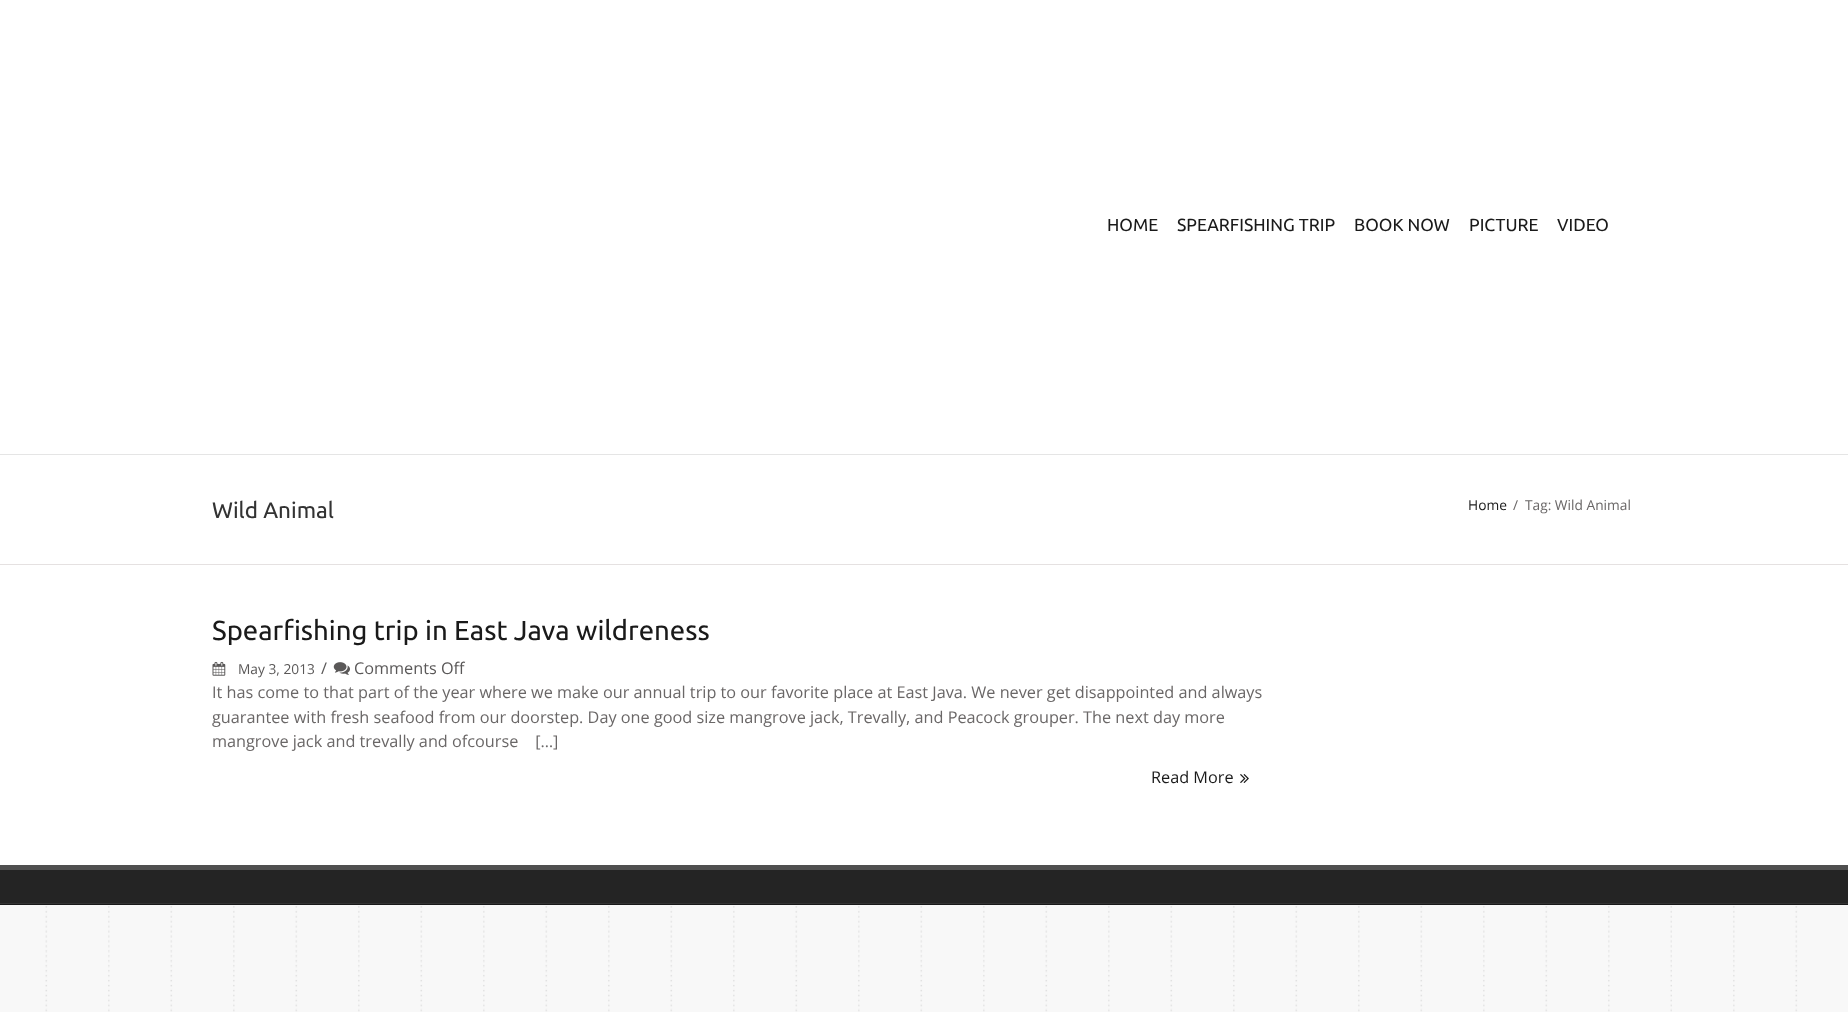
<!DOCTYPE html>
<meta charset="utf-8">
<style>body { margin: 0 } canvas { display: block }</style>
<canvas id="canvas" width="1848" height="1012"></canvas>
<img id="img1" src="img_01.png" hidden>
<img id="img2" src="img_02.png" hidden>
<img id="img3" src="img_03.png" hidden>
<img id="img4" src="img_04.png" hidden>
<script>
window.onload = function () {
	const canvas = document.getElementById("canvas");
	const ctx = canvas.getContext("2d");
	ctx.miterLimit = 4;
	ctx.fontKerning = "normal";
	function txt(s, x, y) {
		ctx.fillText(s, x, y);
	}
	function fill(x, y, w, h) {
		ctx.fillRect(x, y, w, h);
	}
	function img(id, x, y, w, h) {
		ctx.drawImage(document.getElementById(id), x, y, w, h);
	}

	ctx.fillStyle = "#FFFFFF";
	fill(0, 0, 1848, 1012);
	img("img1", 0, 905, 1848, 107);
	ctx.fillStyle = "#E5E5E5";
	fill(0, 454, 1848, 1);
	ctx.fillStyle = "#E5E1E1";
	fill(0, 564, 1848, 1);
	img("img2", 212, 661, 14, 15);
	img("img3", 333, 662, 17, 13);
	img("img4", 1240, 774, 9, 9);
	ctx.fillStyle = "#242424";
	fill(0, 870, 1848, 33);
	ctx.fillStyle = "#4F4F4F";
	fill(0, 865, 1848, 5);
	ctx.fillStyle = "#333333";
	fill(0, 903, 1848, 1);
	ctx.fillStyle = "#181819";
	fill(0, 904, 1848, 1);
	ctx.font = "17.5px Ubuntu";
	ctx.fillStyle = "#1A1A1A";
	txt("HOME", 1107, 231);
	txt("SPEARFISHING TRIP", 1177, 231);
	txt("BOOK NOW", 1354, 231);
	txt("PICTURE", 1469, 231);
	txt("VIDEO", 1557, 231);
	ctx.font = "22.5px Ubuntu";
	ctx.fillStyle = "#333333";
	txt("Wild Animal", 212, 518);
	ctx.font = "13.75px Open Sans";
	ctx.fillStyle = "#1A1A1A";
	txt("Home", 1468, 510);
	ctx.fillStyle = "#6A6767";
	txt("/", 1513, 510);
	txt("Tag: Wild Animal", 1525, 510);
	ctx.font = "27.5px Ubuntu";
	ctx.fillStyle = "#1A1A1A";
	txt("Spearfishing trip in East Java wildreness", 212, 640);
	ctx.font = "13.75px Open Sans";
	ctx.fillStyle = "#5A5858";
	txt("May 3, 2013", 238, 674);
	ctx.font = "16.25px Open Sans";
	txt("/", 321, 674);
	txt("Comments Off", 354, 674);
	ctx.fillStyle = "#6A6767";
	txt("It has come to that part of the year where we make our annual trip to our favorite place at East Java. We never get disappointed and always", 212, 698);
	txt("guarantee with fresh seafood from our doorstep. Day one good size mangrove jack, Trevally, and Peacock grouper. The next day more", 212, 723);
	txt("mangrove jack and trevally and ofcourse    […]", 212, 747);
	ctx.fillStyle = "#1A1A1A";
	txt("Read More", 1151, 783);
};
</script>
